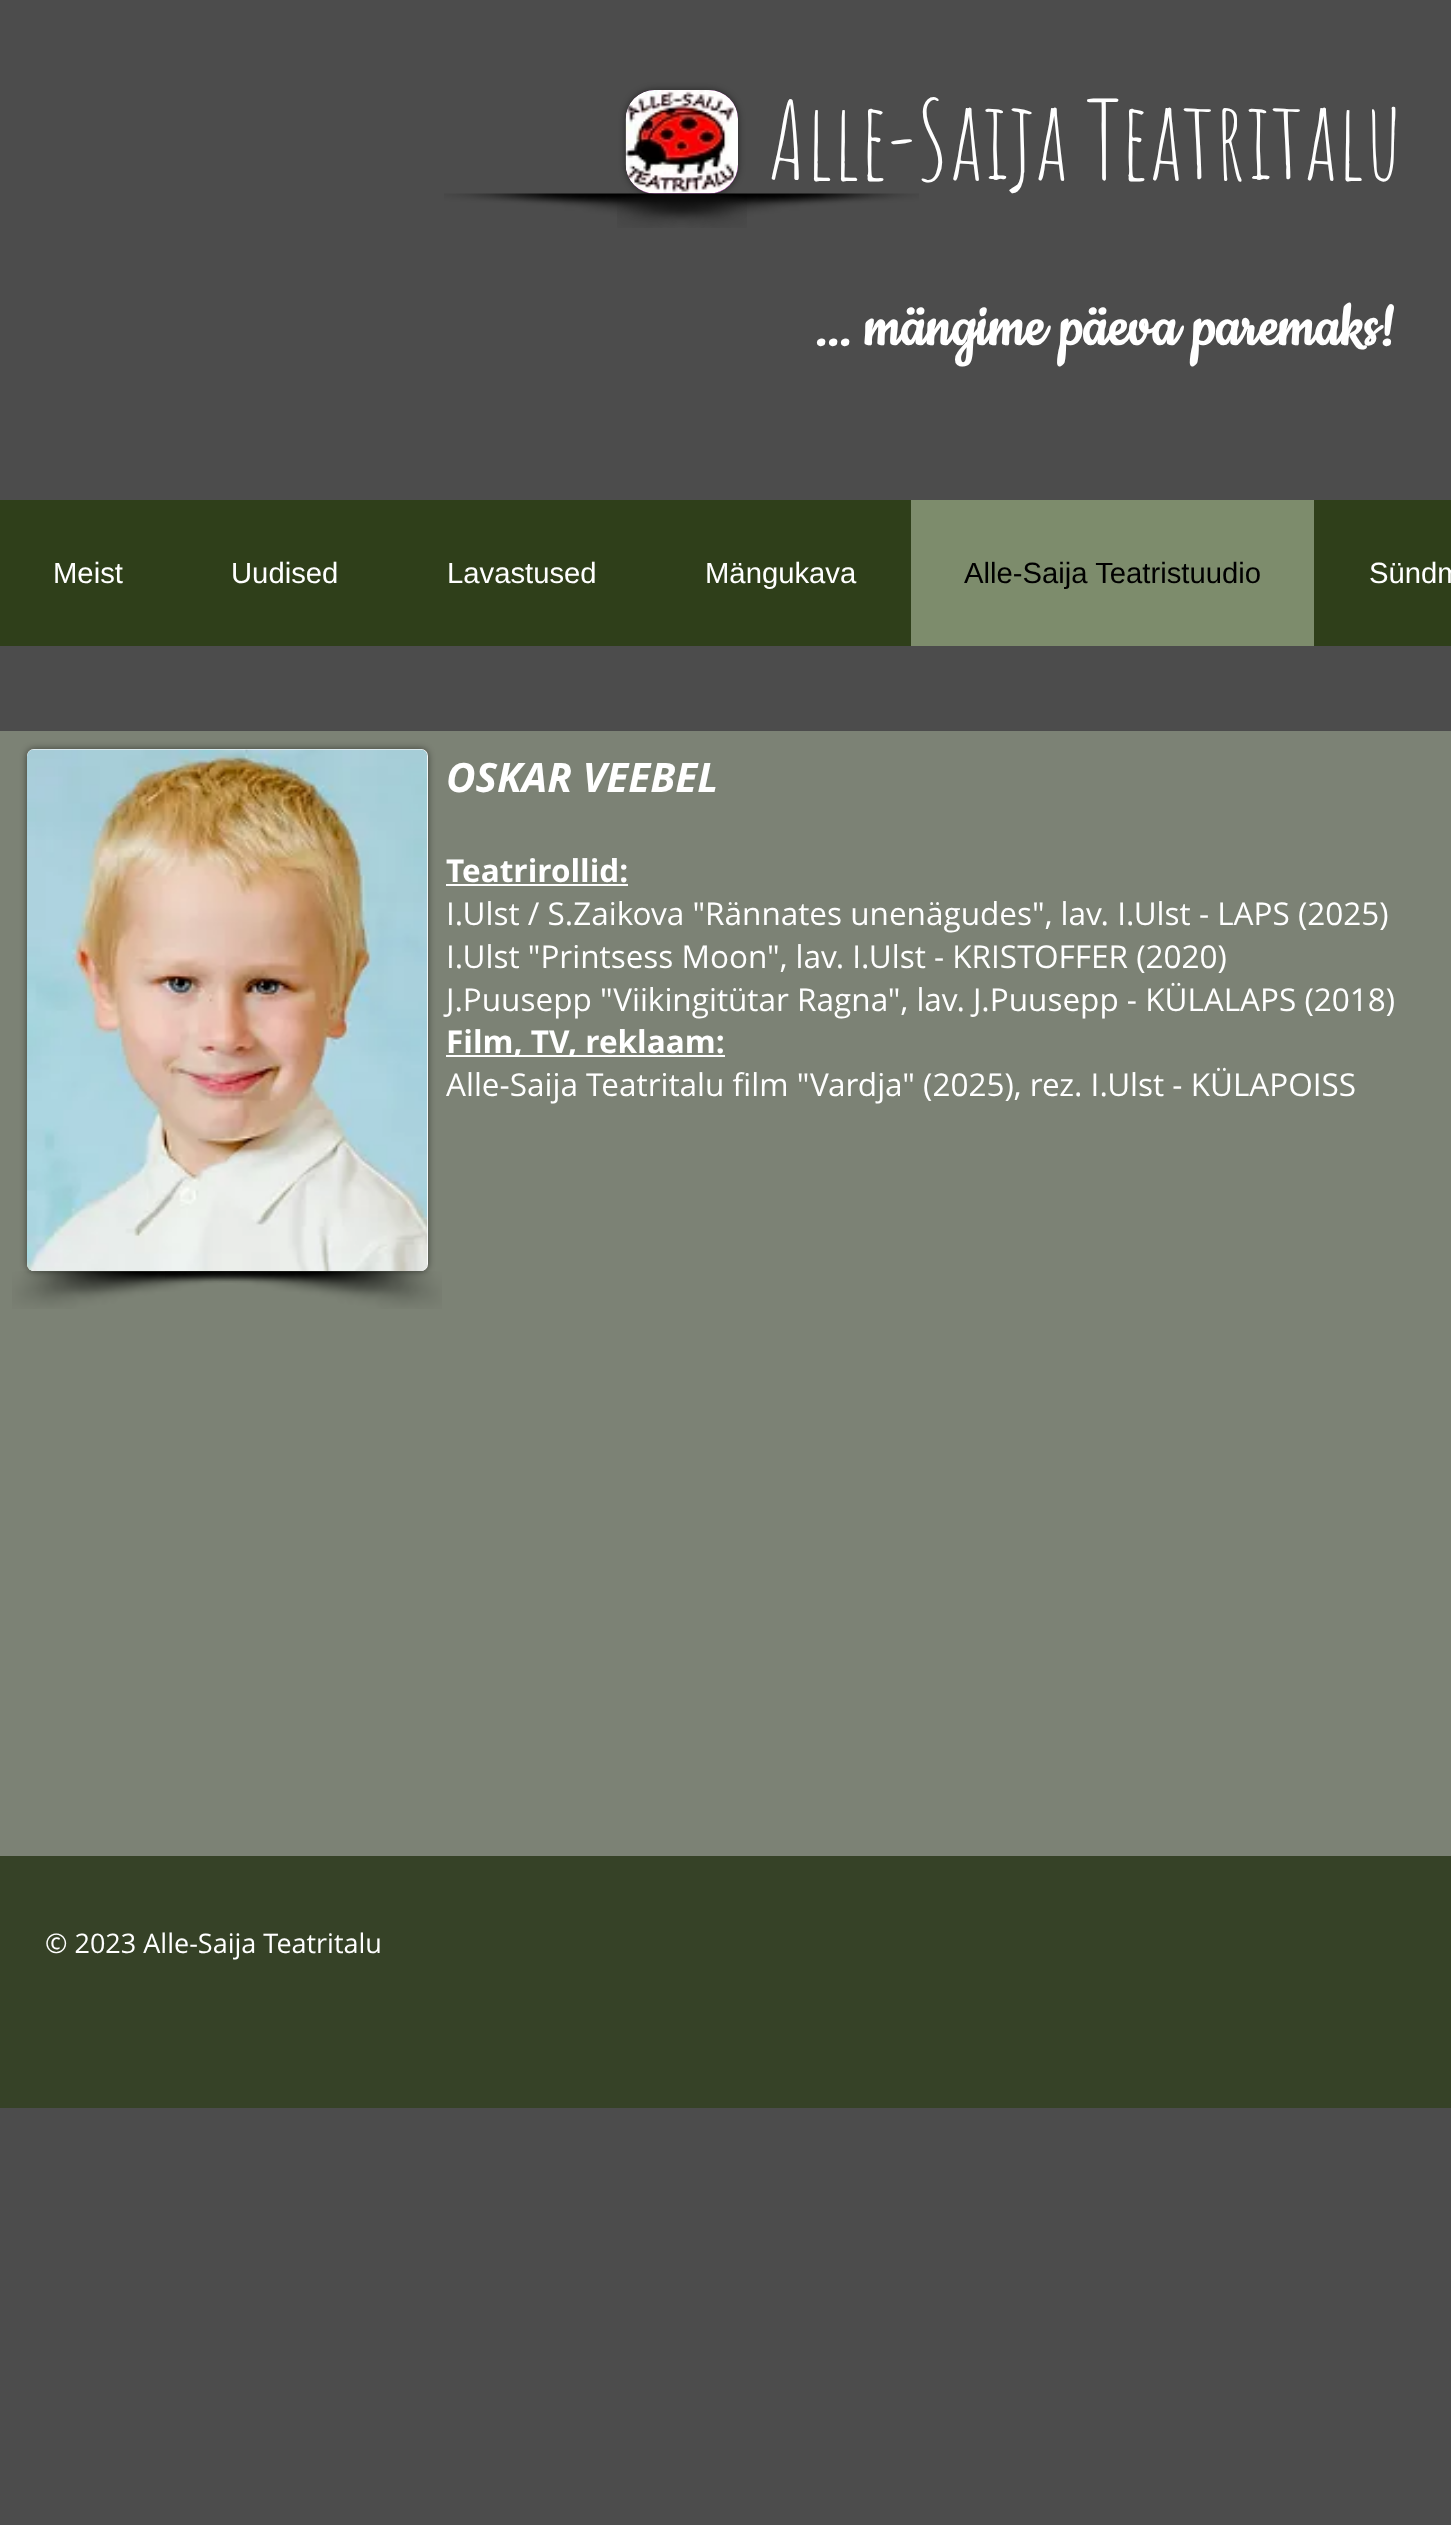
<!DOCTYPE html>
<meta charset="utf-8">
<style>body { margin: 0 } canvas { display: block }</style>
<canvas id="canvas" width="1451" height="2525"></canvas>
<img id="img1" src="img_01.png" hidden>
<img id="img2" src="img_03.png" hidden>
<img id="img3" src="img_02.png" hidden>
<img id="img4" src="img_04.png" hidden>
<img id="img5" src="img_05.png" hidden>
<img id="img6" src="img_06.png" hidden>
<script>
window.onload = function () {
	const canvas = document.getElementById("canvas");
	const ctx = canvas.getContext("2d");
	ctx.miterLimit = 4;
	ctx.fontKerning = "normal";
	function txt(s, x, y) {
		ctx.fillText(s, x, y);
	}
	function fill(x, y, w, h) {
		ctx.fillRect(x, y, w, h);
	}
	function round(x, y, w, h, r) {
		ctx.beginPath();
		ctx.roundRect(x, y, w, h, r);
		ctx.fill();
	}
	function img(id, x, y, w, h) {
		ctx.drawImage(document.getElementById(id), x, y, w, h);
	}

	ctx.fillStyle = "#4C4C4C";
	fill(0, 0, 1451, 2525);
	ctx.fillStyle = "rgba(0, 0, 0, 0.5)";
	ctx.filter = "blur(3.5px)";
	ctx.beginPath();
	ctx.roundRect(626, 90, 112, 104, 29);
	ctx.fill();
	ctx.filter = "none";
	ctx.fillStyle = "#C170C1";
	round(626, 90, 112, 104, 29);
	img("img1", 625, 90, 113, 104);
	img("img2", 617, 193, 302, 35);
	img("img3", 444, 193, 303, 35);
	ctx.fillStyle = "#2F3F1A";
	fill(0, 500, 1451, 146);
	ctx.fillStyle = "#7D8C6C";
	fill(911, 500, 403, 146);
	ctx.fillStyle = "#7C8275";
	fill(0, 731, 1451, 1125);
	ctx.fillStyle = "rgba(0, 0, 0, 0.5)";
	ctx.filter = "blur(3.5px)";
	ctx.beginPath();
	ctx.roundRect(27, 749, 401, 522, 7);
	ctx.fill();
	ctx.filter = "none";
	ctx.fillStyle = "#FFFFFF";
	round(27, 749, 401, 522, 7);
	img("img4", 27, 749, 401, 522);
	img("img5", 12, 1271, 318, 38);
	img("img6", 165, 1271, 277, 38);
	fill(446, 884, 182, 2);
	fill(446, 1055, 279, 2);
	ctx.fillStyle = "#364227";
	fill(0, 1856, 1451, 252);
	ctx.font = "108px Amatic SC";
	ctx.fillStyle = "#FFFFFF";
	txt("Alle-Saija Teatritalu", 768, 180);
	ctx.font = "bold 67.5px Cookie";
	txt("... mängime päeva paremaks!", 815, 345);
	ctx.font = "29.25px Liberation Sans";
	txt("Meist", 53, 583);
	txt("Uudised", 231, 583);
	txt("Lavastused", 447, 583);
	txt("Mängukava", 705, 583);
	ctx.fillStyle = "#000000";
	txt("Alle-Saija Teatristuudio", 964, 583);
	ctx.fillStyle = "#FFFFFF";
	txt("Sündm", 1369, 583);
	ctx.font = "italic bold 40.5px Open Sans";
	txt("OSKAR VEEBEL", 446, 792);
	ctx.font = "bold 31.5px Open Sans";
	txt("Teatrirollid:", 446, 882);
	ctx.font = "31.5px Open Sans";
	txt("I.Ulst / S.Zaikova \"Rännates unenägudes\", lav. I.Ulst - LAPS (2025)", 446, 925);
	txt("I.Ulst \"Printsess Moon\", lav. I.Ulst - KRISTOFFER (2020)", 446, 968);
	txt("J.Puusepp \"Viikingitütar Ragna\", lav. J.Puusepp - KÜLALAPS (2018)", 446, 1011);
	ctx.font = "bold 31.5px Open Sans";
	txt("Film, TV, reklaam:", 446, 1053);
	ctx.font = "31.5px Open Sans";
	txt("Alle-Saija Teatritalu film \"Vardja\" (2025), rez. I.Ulst - KÜLAPOISS", 446, 1096);
	ctx.font = "27px Open Sans";
	txt("© 2023 Alle-Saija Teatritalu", 45, 1953);
};
</script>
